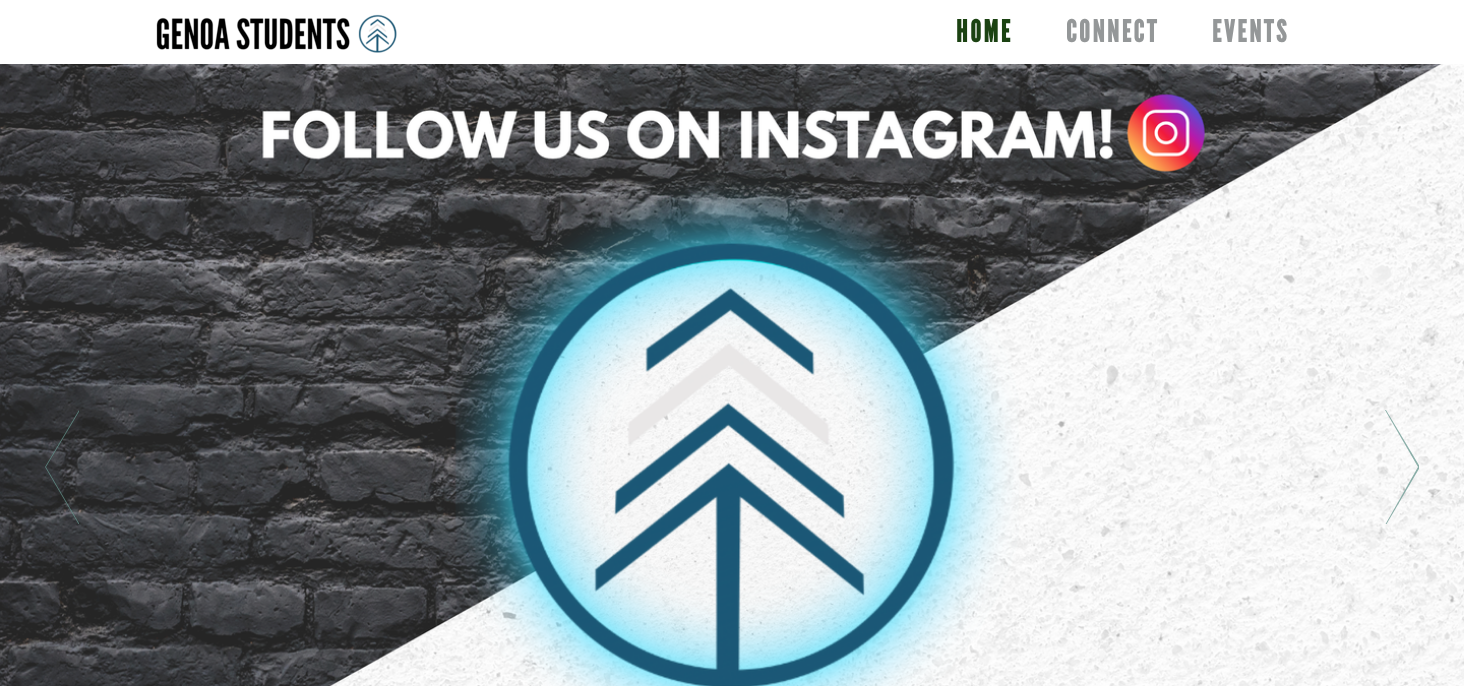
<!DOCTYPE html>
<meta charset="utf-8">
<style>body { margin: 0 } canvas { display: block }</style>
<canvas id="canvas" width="1464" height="686"></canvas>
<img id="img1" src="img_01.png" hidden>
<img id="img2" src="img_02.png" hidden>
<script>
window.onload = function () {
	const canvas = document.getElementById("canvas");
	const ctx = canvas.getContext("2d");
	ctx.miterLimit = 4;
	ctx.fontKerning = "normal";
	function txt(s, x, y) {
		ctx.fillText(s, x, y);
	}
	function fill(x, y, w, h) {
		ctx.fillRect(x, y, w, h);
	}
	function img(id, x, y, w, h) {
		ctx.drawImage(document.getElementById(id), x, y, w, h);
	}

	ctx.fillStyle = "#FFFFFF";
	fill(0, 0, 1464, 686);
	img("img1", 156, 14, 241, 39);
	img("img2", 0, 64, 1464, 622);
	ctx.save();
	ctx.beginPath();
	ctx.rect(45, 408, 34, 116);
	ctx.clip();
	ctx.fillStyle = "rgba(102, 150, 141, 0.75)";
	ctx.beginPath();
	ctx.moveTo(79, 525);
	ctx.lineTo(80, 525);
	ctx.lineTo(46, 467);
	ctx.lineTo(80, 410);
	ctx.lineTo(79, 410);
	ctx.lineTo(45, 467);
	ctx.closePath();
	ctx.fill();
	ctx.restore();
	ctx.save();
	ctx.beginPath();
	ctx.rect(1385, 408, 34, 116);
	ctx.clip();
	ctx.fillStyle = "rgba(102, 150, 141, 0.75)";
	ctx.beginPath();
	ctx.moveTo(1386, 410);
	ctx.lineTo(1385, 410);
	ctx.lineTo(1418, 467);
	ctx.lineTo(1385, 525);
	ctx.lineTo(1386, 525);
	ctx.lineTo(1420, 467);
	ctx.closePath();
	ctx.fill();
	ctx.restore();
	ctx.letterSpacing = "2.75px";
	ctx.font = "bold 30px League Gothic";
	ctx.fillStyle = "#1B4212";
	txt("HOME", 956, 42);
	ctx.fillStyle = "#949798";
	txt("CONNECT", 1066, 42);
	txt("EVENTS", 1212, 42);
};
</script>
